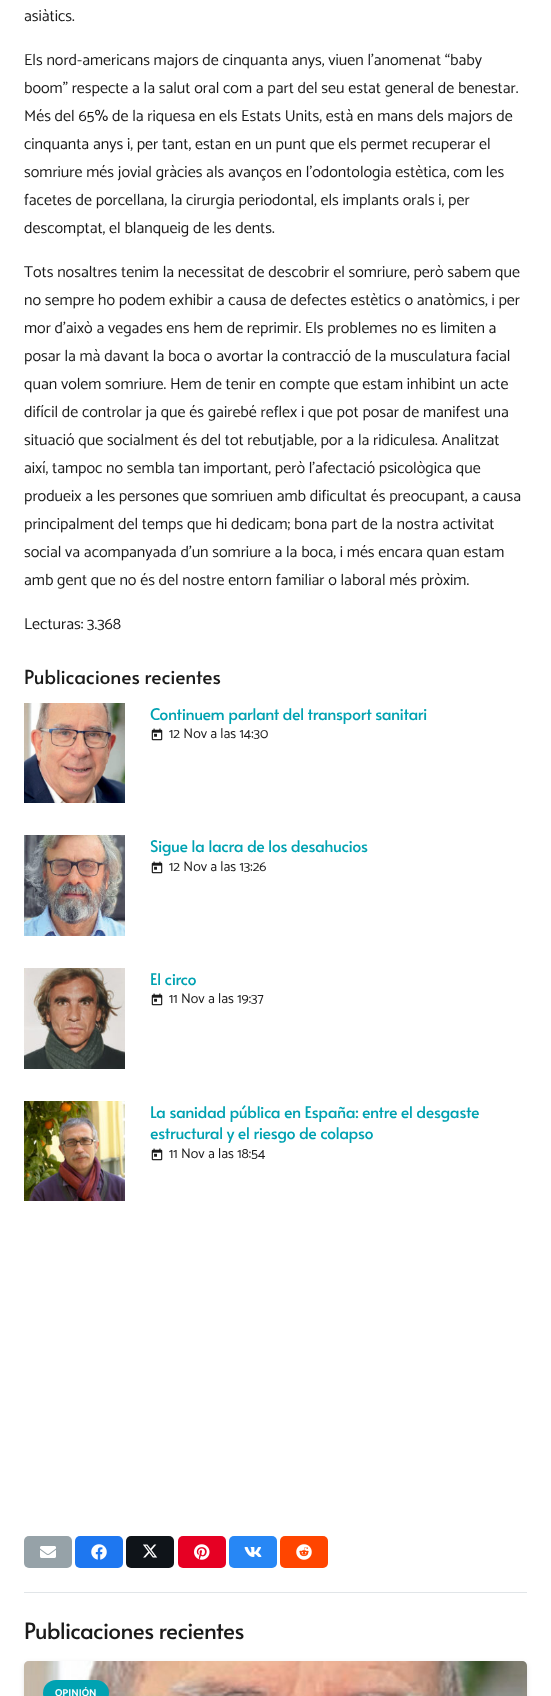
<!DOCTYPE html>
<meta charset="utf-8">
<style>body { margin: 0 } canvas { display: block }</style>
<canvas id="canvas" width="551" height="1696"></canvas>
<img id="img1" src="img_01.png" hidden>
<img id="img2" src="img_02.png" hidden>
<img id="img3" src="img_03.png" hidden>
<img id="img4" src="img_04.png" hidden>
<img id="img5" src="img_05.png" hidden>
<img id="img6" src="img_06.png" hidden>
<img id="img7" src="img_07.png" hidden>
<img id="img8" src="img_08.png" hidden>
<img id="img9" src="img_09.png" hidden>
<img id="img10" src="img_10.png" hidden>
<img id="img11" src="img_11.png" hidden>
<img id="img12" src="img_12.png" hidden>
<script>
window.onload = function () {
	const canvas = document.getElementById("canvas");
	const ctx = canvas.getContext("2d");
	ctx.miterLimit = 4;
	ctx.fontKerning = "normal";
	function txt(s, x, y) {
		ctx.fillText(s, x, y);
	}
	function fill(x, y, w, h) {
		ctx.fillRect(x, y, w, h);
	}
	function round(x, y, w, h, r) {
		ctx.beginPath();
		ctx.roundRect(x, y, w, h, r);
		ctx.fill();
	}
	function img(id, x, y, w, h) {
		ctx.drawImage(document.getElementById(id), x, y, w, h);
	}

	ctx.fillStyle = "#FFFFFF";
	fill(0, 0, 551, 1696);
	img("img1", 24, 703, 101, 100);
	img("img2", 151, 728, 12, 13);
	img("img3", 24, 835, 101, 101);
	img("img2", 151, 861, 12, 13);
	img("img4", 24, 968, 101, 101);
	img("img2", 151, 993, 12, 13);
	img("img5", 24, 1101, 101, 100);
	img("img2", 151, 1148, 12, 13);
	ctx.fillStyle = "#96A2A8";
	round(24, 1536, 48, 32, 5);
	img("img6", 40, 1546, 16, 12);
	ctx.fillStyle = "#1E77F0";
	round(75, 1536, 48, 32, 5);
	img("img7", 91, 1544, 16, 16);
	ctx.fillStyle = "#0F1419";
	round(126, 1536, 48, 32, 5);
	img("img8", 143, 1544, 15, 14);
	ctx.fillStyle = "#E60023";
	round(178, 1536, 48, 32, 5);
	img("img9", 194, 1544, 16, 16);
	ctx.fillStyle = "#2787F5";
	round(229, 1536, 48, 32, 5);
	img("img10", 244, 1547, 18, 10);
	ctx.fillStyle = "#FF4500";
	round(280, 1536, 48, 32, 5);
	img("img11", 296, 1544, 16, 16);
	ctx.fillStyle = "#E1E5E8";
	fill(24, 1592, 503, 1);
	ctx.fillStyle = "rgba(0, 0, 0, 0.1)";
	ctx.filter = "blur(2.5px)";
	ctx.beginPath();
	ctx.roundRect(24, 1663, 503, 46, 5);
	ctx.fill();
	ctx.filter = "none";
	ctx.filter = "blur(0.5px)";
	ctx.beginPath();
	ctx.roundRect(24, 1661, 503, 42, 5);
	ctx.fill();
	ctx.filter = "none";
	img("img12", 24, 1661, 503, 35);
	ctx.fillStyle = "#00A2B2";
	round(43, 1680, 66, 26, 13);
	ctx.font = "16px Catamaran";
	ctx.fillStyle = "#1A1A1A";
	txt("asiàtics.", 24, 21);
	txt("Els nord-americans majors de cinquanta anys, viuen l’anomenat “baby", 24, 65);
	txt("boom” respecte a la salut oral com a part del seu estat general de benestar.", 24, 93);
	txt("Més del 65% de la riquesa en els Estats Units, està en mans dels majors de", 24, 121);
	txt("cinquanta anys i, per tant, estan en un punt que els permet recuperar el", 24, 149);
	txt("somriure més jovial gràcies als avanços en l’odontologia estètica, com les", 24, 177);
	txt("facetes de porcellana, la cirurgia periodontal, els implants orals i, per", 24, 205);
	txt("descomptat, el blanqueig de les dents.", 24, 233);
	txt("Tots nosaltres tenim la necessitat de descobrir el somriure, però sabem que", 24, 277);
	txt("no sempre ho podem exhibir a causa de defectes estètics o anatòmics, i per", 24, 305);
	txt("mor d’això a vegades ens hem de reprimir. Els problemes no es limiten a", 24, 333);
	txt("posar la mà davant la boca o avortar la contracció de la musculatura facial", 24, 361);
	txt("quan volem somriure. Hem de tenir en compte que estam inhibint un acte", 24, 389);
	txt("difícil de controlar ja que és gairebé reflex i que pot posar de manifest una", 24, 417);
	txt("situació que socialment és del tot rebutjable, por a la ridiculesa. Analitzat", 24, 445);
	txt("així, tampoc no sembla tan important, però l’afectació psicològica que", 24, 473);
	txt("produeix a les persones que somriuen amb dificultat és preocupant, a causa", 24, 501);
	txt("principalment del temps que hi dedicam; bona part de la nostra activitat", 24, 529);
	txt("social va acompanyada d’un somriure a la boca, i més encara quan estam", 24, 557);
	txt("amb gent que no és del nostre entorn familiar o laboral més pròxim.", 24, 585);
	txt("Lecturas: 3.368", 24, 629);
	ctx.font = "19.25px Alata";
	txt("Publicaciones recientes", 24, 684);
	ctx.letterSpacing = "-0.3px";
	ctx.font = "16px Alata";
	ctx.fillStyle = "#00A2B2";
	txt("Continuem parlant del transport sanitari", 150, 720);
	ctx.letterSpacing = "0px";
	ctx.font = "14px Catamaran";
	ctx.fillStyle = "#1A1A1A";
	txt("12 Nov a las 14:30", 169, 738);
	ctx.letterSpacing = "-0.3px";
	ctx.font = "16px Alata";
	ctx.fillStyle = "#00A2B2";
	txt("Sigue la lacra de los desahucios", 150, 852);
	ctx.letterSpacing = "0px";
	ctx.font = "14px Catamaran";
	ctx.fillStyle = "#1A1A1A";
	txt("12 Nov a las 13:26", 169, 871);
	ctx.letterSpacing = "-0.3px";
	ctx.font = "16px Alata";
	ctx.fillStyle = "#00A2B2";
	txt("El circo", 150, 985);
	ctx.letterSpacing = "0px";
	ctx.font = "14px Catamaran";
	ctx.fillStyle = "#1A1A1A";
	txt("11 Nov a las 19:37", 169, 1003);
	ctx.letterSpacing = "-0.3px";
	ctx.font = "16px Alata";
	ctx.fillStyle = "#00A2B2";
	txt("La sanidad pública en España: entre el desgaste", 150, 1118);
	txt("estructural y el riesgo de colapso", 150, 1139);
	ctx.letterSpacing = "0px";
	ctx.font = "14px Catamaran";
	ctx.fillStyle = "#1A1A1A";
	txt("11 Nov a las 18:54", 169, 1158);
	ctx.letterSpacing = "-0.45px";
	ctx.font = "22.5px Alata";
	txt("Publicaciones recientes", 24, 1639);
	ctx.letterSpacing = "0px";
	ctx.font = "bold 10px Catamaran";
	ctx.fillStyle = "#FFFFFF";
	txt("OPINIÓN", 55, 1696);
};
</script>
